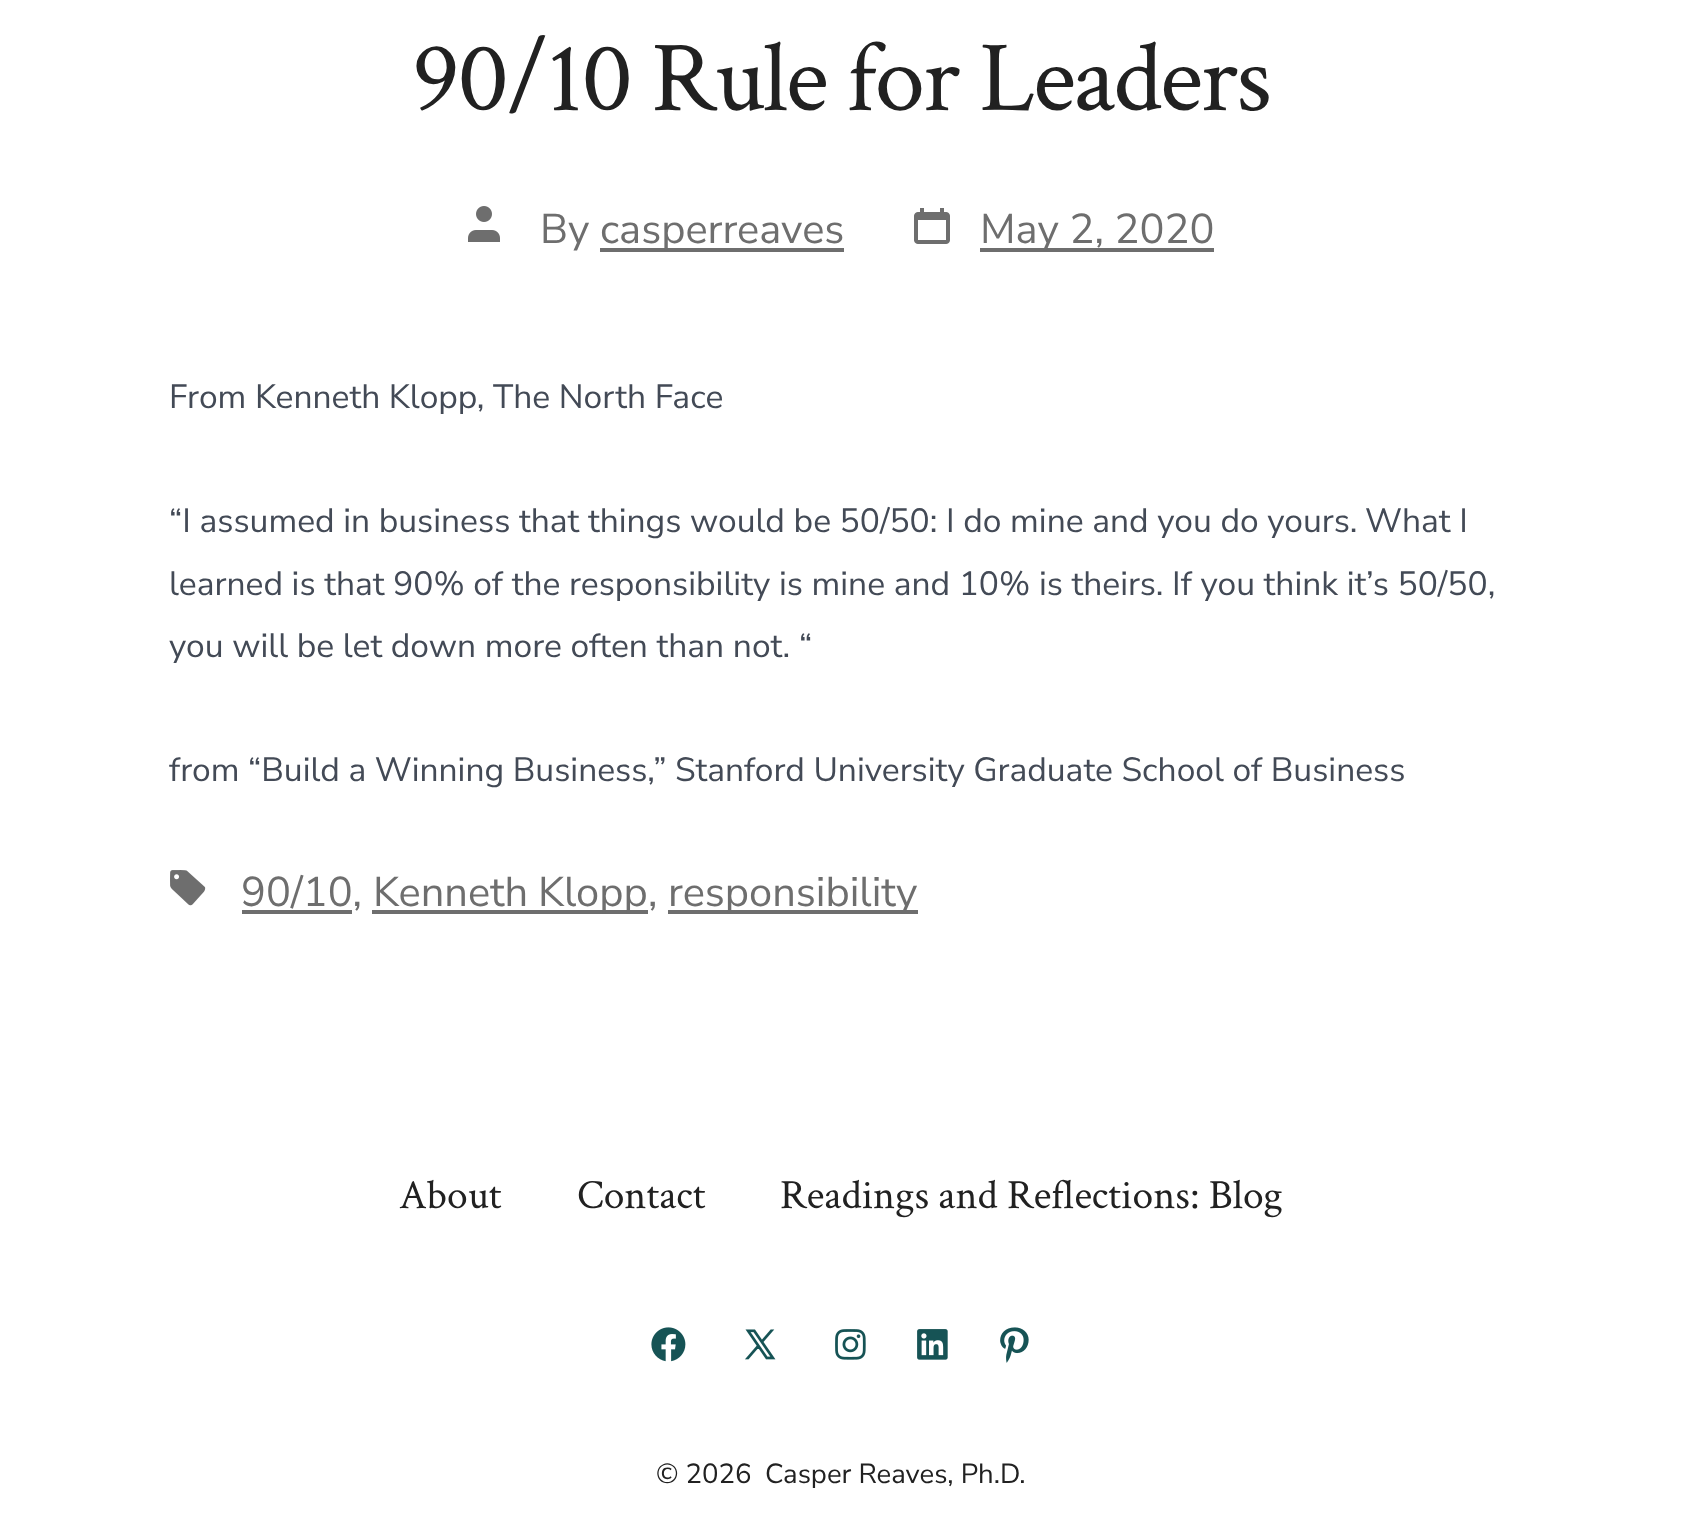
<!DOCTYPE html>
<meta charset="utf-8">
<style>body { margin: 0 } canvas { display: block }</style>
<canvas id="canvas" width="1682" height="1539"></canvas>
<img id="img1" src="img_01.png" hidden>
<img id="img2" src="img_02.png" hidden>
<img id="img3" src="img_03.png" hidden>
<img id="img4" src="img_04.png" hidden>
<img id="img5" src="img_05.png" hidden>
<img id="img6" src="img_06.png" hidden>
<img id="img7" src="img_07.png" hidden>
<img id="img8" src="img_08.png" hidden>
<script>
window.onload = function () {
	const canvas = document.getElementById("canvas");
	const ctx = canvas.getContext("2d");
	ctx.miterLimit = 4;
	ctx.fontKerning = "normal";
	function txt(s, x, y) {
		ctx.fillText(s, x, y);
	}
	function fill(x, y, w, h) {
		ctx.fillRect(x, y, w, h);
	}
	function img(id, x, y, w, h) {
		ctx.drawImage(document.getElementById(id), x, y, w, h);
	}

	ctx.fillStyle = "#FFFFFF";
	fill(0, 0, 1682, 1539);
	img("img1", 468, 206, 32, 36);
	ctx.fillStyle = "#6E6E6E";
	fill(600, 248, 244, 4);
	img("img2", 914, 208, 36, 36);
	fill(980, 248, 234, 4);
	img("img3", 170, 870, 36, 36);
	fill(242, 910, 110, 4);
	fill(372, 910, 276, 4);
	fill(668, 910, 250, 4);
	img("img4", 651, 1327, 35, 35);
	img("img5", 745, 1329, 31, 31);
	img("img6", 835, 1329, 31, 31);
	img("img7", 917, 1329, 31, 31);
	img("img8", 1000, 1327, 29, 36);
	ctx.letterSpacing = "-2px";
	ctx.font = "101px Crimson Text";
	ctx.fillStyle = "#212121";
	txt("90/10 Rule for Leaders", 412, 110);
	ctx.letterSpacing = "0px";
	ctx.font = "41.6px Nunito Sans";
	ctx.fillStyle = "#6E6E6E";
	txt("By", 540, 243);
	txt("casperreaves", 600, 243);
	txt("May 2, 2020", 980, 243);
	ctx.font = "33.6px Nunito Sans";
	ctx.fillStyle = "#434A56";
	txt("From Kenneth Klopp, The North Face", 169, 408);
	txt("“I assumed in business that things would be 50/50: I do mine and you do yours.", 169, 532);
	txt("What I", 1365, 532);
	txt("learned is that 90% of the responsibility is mine and 10% is theirs. If you think it’s 50/50,", 169, 595);
	txt("you will be let down more often than not. “", 169, 657);
	ctx.wordSpacing = "-0.1px";
	txt("from “Build a Winning Business,” Stanford University Graduate School of Business", 169, 781);
	ctx.wordSpacing = "0px";
	ctx.font = "41.6px Nunito Sans";
	ctx.fillStyle = "#6E6E6E";
	txt("90/10,", 241, 906);
	ctx.wordSpacing = "-1px";
	txt("Kenneth Klopp", 373, 906);
	ctx.wordSpacing = "0px";
	txt(",", 648, 906);
	txt("responsibility", 668, 906);
	ctx.font = "41.6px Crimson Text";
	ctx.fillStyle = "#212121";
	txt("About", 399, 1208);
	txt("Contact", 577, 1208);
	txt("Readings and Reflections: Blog", 780, 1208);
	ctx.font = "27.5px Nunito Sans";
	txt("© 2026", 656, 1483);
	txt("Casper Reaves, Ph.D.", 765, 1483);
};
</script>
